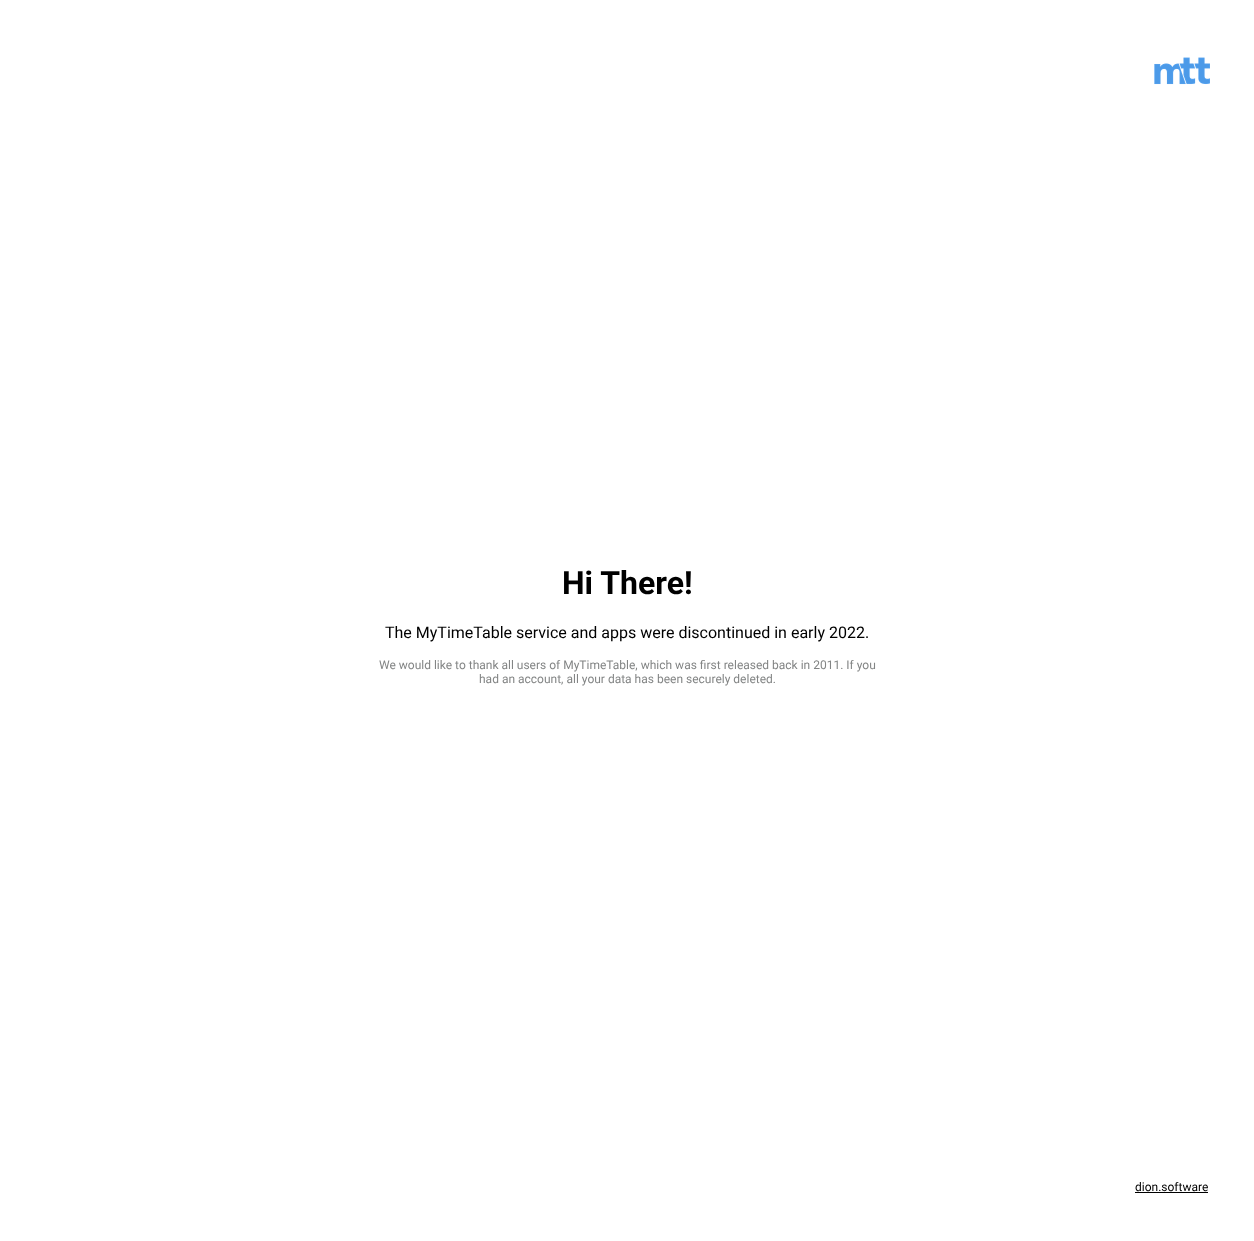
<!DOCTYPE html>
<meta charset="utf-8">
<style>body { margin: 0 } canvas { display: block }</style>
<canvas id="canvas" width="1254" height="1241"></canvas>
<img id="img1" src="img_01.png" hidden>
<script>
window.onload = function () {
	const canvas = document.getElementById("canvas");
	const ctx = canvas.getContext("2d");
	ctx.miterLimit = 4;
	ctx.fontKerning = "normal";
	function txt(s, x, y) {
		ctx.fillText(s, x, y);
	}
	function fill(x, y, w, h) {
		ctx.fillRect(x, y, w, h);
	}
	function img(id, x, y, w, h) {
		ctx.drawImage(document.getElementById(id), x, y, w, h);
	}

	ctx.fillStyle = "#FFFFFF";
	fill(0, 0, 1254, 1241);
	img("img1", 1154, 57, 56, 28);
	ctx.fillStyle = "#000000";
	fill(1135, 1192, 73, 1);
	ctx.font = "bold 32px Roboto";
	txt("Hi There!", 562, 594);
	ctx.font = "16px Roboto";
	txt("The MyTimeTable service and apps were discontinued in early 2022.", 385, 638);
	ctx.font = "12px Roboto";
	ctx.fillStyle = "#838585";
	txt("We would like to thank all users of MyTimeTable, which was first released back in 2011. If you", 379, 669);
	txt("had an account, all your data has been securely deleted.", 479, 683);
	ctx.fillStyle = "#000000";
	txt("dion.software", 1135, 1191);
};
</script>
